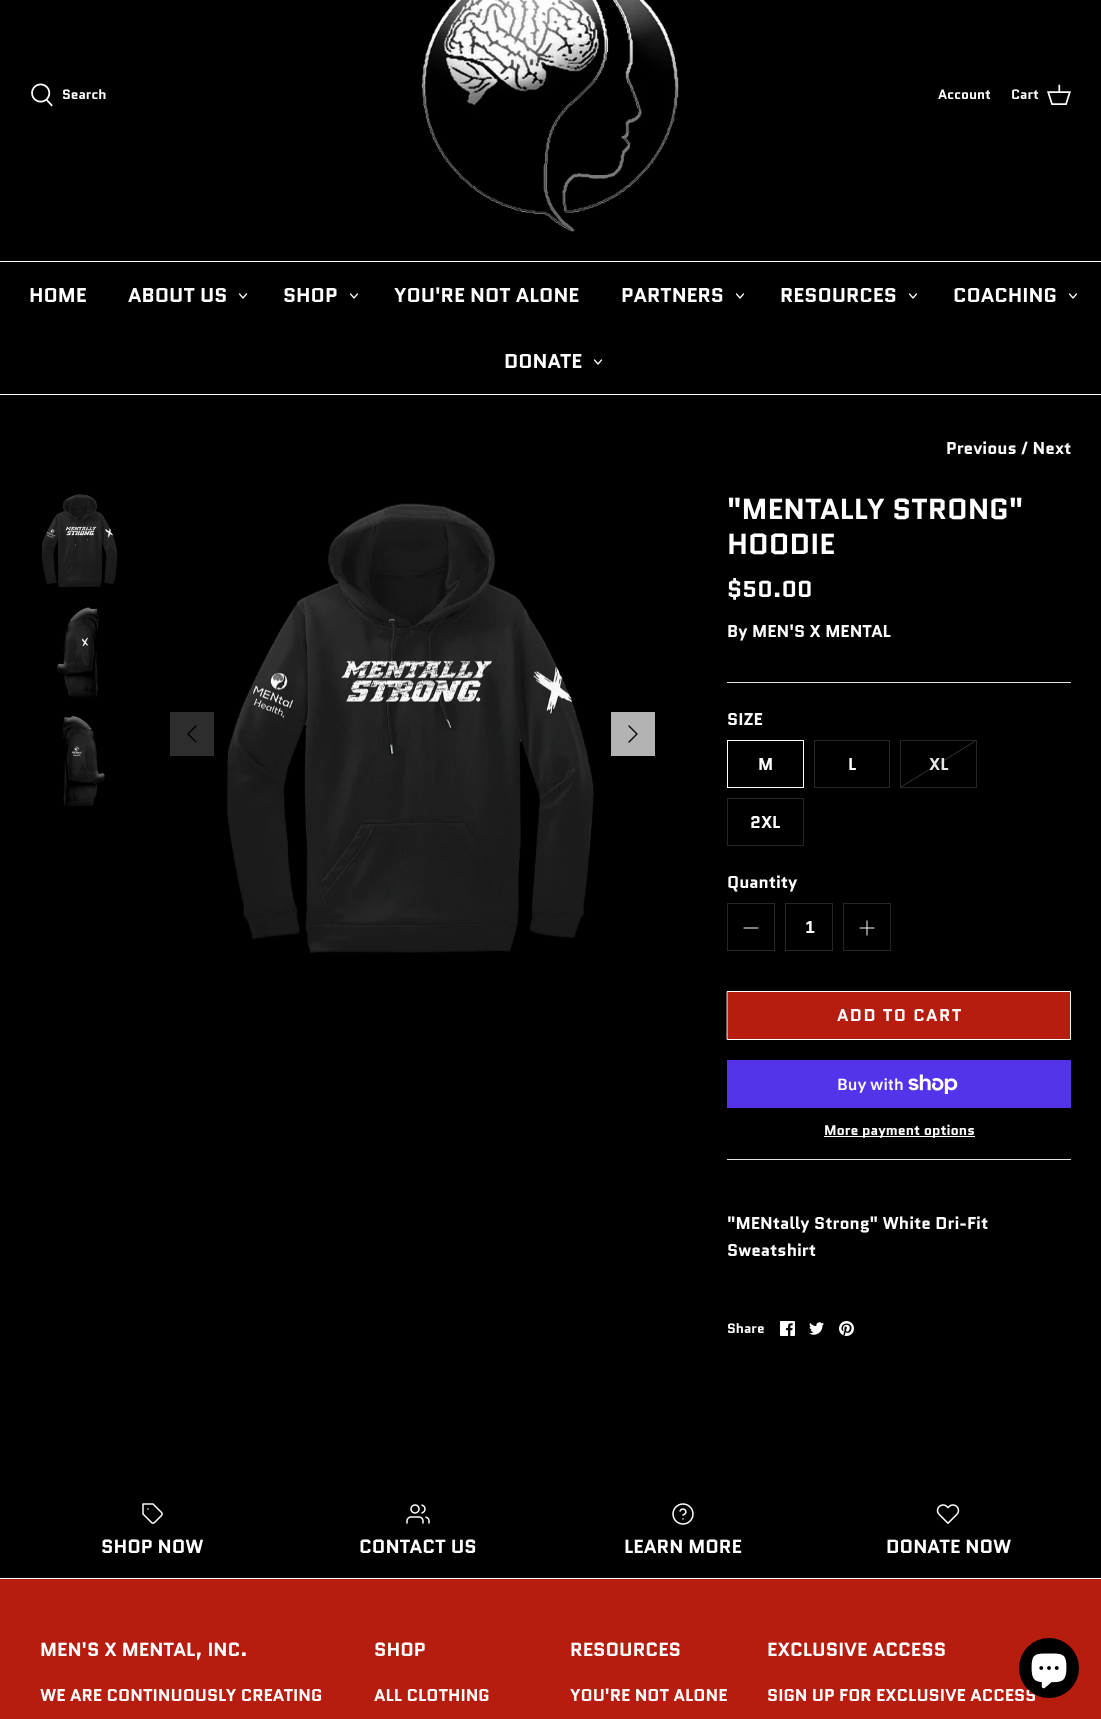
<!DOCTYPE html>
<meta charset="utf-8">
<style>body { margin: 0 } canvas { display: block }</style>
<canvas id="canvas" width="1101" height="1719"></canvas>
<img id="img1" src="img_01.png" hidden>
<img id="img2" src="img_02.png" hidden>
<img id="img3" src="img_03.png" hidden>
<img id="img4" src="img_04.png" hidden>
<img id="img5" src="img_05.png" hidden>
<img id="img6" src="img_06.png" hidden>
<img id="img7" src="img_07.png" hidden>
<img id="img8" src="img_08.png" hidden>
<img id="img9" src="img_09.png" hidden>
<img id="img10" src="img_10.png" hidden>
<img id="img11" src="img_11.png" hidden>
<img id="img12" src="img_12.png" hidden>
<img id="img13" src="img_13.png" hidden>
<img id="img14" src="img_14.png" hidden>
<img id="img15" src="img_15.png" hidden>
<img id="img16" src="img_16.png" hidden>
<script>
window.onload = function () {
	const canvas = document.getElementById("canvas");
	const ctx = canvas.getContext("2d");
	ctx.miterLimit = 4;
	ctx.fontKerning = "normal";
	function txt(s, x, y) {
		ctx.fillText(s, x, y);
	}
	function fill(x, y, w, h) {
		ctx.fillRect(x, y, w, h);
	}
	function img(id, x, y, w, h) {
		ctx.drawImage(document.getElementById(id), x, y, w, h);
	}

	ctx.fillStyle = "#000000";
	fill(0, 0, 1101, 1719);
	ctx.fillStyle = "#FFFFFF";
	fill(0, 261, 1101, 1);
	img("img1", 31, 83, 22, 24);
	img("img2", 421, 0, 258, 232);
	img("img3", 1047, 84, 24, 21);
	fill(0, 394, 1101, 1);
	ctx.beginPath();
	ctx.moveTo(239.5, 294);
	ctx.lineTo(243, 298);
	ctx.lineTo(246.5, 294);
	ctx.strokeStyle = "#FFFFFF";
	ctx.lineWidth = 1.2;
	ctx.lineCap = "round";
	ctx.lineJoin = "round";
	ctx.stroke();
	ctx.beginPath();
	ctx.moveTo(350.5, 294);
	ctx.lineTo(354, 298);
	ctx.lineTo(357.5, 294);
	ctx.stroke();
	ctx.beginPath();
	ctx.moveTo(736.5, 294);
	ctx.lineTo(740, 298);
	ctx.lineTo(743.5, 294);
	ctx.stroke();
	ctx.beginPath();
	ctx.moveTo(909.5, 294);
	ctx.lineTo(913, 298);
	ctx.lineTo(916.5, 294);
	ctx.stroke();
	ctx.beginPath();
	ctx.moveTo(1069.5, 294);
	ctx.lineTo(1073, 298);
	ctx.lineTo(1076.5, 294);
	ctx.stroke();
	ctx.beginPath();
	ctx.moveTo(594.5, 360);
	ctx.lineTo(598, 364);
	ctx.lineTo(601.5, 360);
	ctx.stroke();
	img("img4", 41, 494, 77, 93);
	img("img5", 57, 607, 42, 90);
	img("img6", 63, 716, 42, 90);
	img("img7", 227, 503, 367, 450);
	ctx.fillStyle = "#2D2D2D";
	fill(170, 712, 44, 44);
	ctx.beginPath();
	ctx.moveTo(196, 742);
	ctx.lineTo(188, 734);
	ctx.lineTo(196, 726);
	ctx.strokeStyle = "#000000";
	ctx.lineWidth = 1.3;
	ctx.stroke();
	ctx.fillStyle = "#B3B3B3";
	fill(611, 712, 44, 44);
	ctx.beginPath();
	ctx.moveTo(629, 742);
	ctx.lineTo(637, 734);
	ctx.lineTo(629, 726);
	ctx.stroke();
	ctx.fillStyle = "#E2E2E2";
	fill(727, 682, 344, 1);
	fill(727, 1159, 344, 1);
	ctx.strokeStyle = "#FFFFFF";
	ctx.lineWidth = 1;
	ctx.lineJoin = "miter";
	ctx.strokeRect(727.5, 740.5, 76, 47);
	ctx.strokeStyle = "#262626";
	ctx.strokeRect(814.5, 740.5, 75, 47);
	ctx.beginPath();
	ctx.moveTo(975.5, 741);
	ctx.lineTo(901, 787);
	ctx.strokeStyle = "#333333";
	ctx.lineCap = "butt";
	ctx.stroke();
	ctx.strokeStyle = "#262626";
	ctx.strokeRect(900.5, 740.5, 76, 47);
	ctx.strokeRect(727.5, 798.5, 76, 47);
	ctx.strokeRect(727.5, 903.5, 47, 47);
	ctx.beginPath();
	ctx.moveTo(744, 928);
	ctx.lineTo(758, 928);
	ctx.strokeStyle = "#FFFFFF";
	ctx.lineCap = "round";
	ctx.lineJoin = "round";
	ctx.stroke();
	ctx.strokeStyle = "#262626";
	ctx.lineJoin = "miter";
	ctx.strokeRect(785.5, 903.5, 47, 47);
	ctx.strokeRect(843.5, 903.5, 47, 47);
	ctx.beginPath();
	ctx.moveTo(867, 921);
	ctx.lineTo(867, 935);
	ctx.moveTo(860, 928);
	ctx.lineTo(874, 928);
	ctx.strokeStyle = "#FFFFFF";
	ctx.lineJoin = "round";
	ctx.stroke();
	ctx.fillStyle = "#B61D0F";
	ctx.beginPath();
	ctx.rect(727.5, 991.5, 343, 48);
	ctx.fill();
	ctx.lineJoin = "miter";
	ctx.stroke();
	ctx.fillStyle = "#5433EB";
	fill(727, 1060, 344, 48);
	img("img8", 908, 1074, 50, 20);
	ctx.fillStyle = "#FFFFFF";
	fill(824, 1136, 151, 1);
	img("img9", 780, 1321, 15, 15);
	img("img10", 809, 1322, 15, 13);
	img("img11", 839, 1321, 15, 15);
	ctx.fillStyle = "#B61D0F";
	fill(0, 1579, 1101, 140);
	img("img12", 142, 1503, 21, 21);
	img("img13", 406, 1504, 24, 20);
	img("img14", 672, 1503, 22, 22);
	img("img15", 936, 1504, 24, 20);
	ctx.fillStyle = "#FFFFFF";
	fill(0, 1578, 1101, 1);
	ctx.font = "bold 13.5px Quantico";
	txt("Search", 62, 99);
	txt("Account", 938, 99);
	txt("Cart", 1011, 99);
	ctx.font = "bold 20px Quantico";
	txt("HOME", 29, 302);
	txt("ABOUT US", 128, 302);
	txt("SHOP", 283, 302);
	txt("YOU'RE NOT ALONE", 394, 302);
	txt("PARTNERS", 621, 302);
	txt("RESOURCES", 780, 302);
	txt("COACHING", 953, 302);
	txt("DONATE", 504, 368);
	ctx.font = "bold 17px Quantico";
	txt("Previous / Next", 946, 454);
	ctx.font = "bold 29px Quantico";
	txt("\"MENTALLY STRONG\"", 727, 519);
	txt("HOODIE", 727, 554);
	ctx.font = "bold 23px Quantico";
	txt("$50.00", 727, 597);
	ctx.font = "bold 17px Quantico";
	txt("By MEN'S X MENTAL", 727, 637);
	txt("SIZE", 727, 725);
	txt("M", 758, 770);
	txt("L", 848, 770);
	ctx.fillStyle = "#E6E6E6";
	txt("XL", 929, 770);
	ctx.fillStyle = "#FFFFFF";
	txt("2XL", 750, 828);
	txt("Quantity", 727, 888);
	txt("1", 805, 933);
	ctx.letterSpacing = "1.4px";
	txt("ADD TO CART", 837, 1021);
	ctx.letterSpacing = "0px";
	ctx.font = "600 16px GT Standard";
	txt("Buy with", 837, 1090);
	ctx.font = "bold 14px Quantico";
	txt("More payment options", 824, 1135);
	ctx.font = "bold 17px Quantico";
	txt("\"MENtally Strong\" White Dri-Fit", 727, 1229);
	txt("Sweatshirt", 727, 1256);
	ctx.font = "bold 13.5px Quantico";
	txt("Share", 727, 1333);
	ctx.font = "bold 19px Quantico";
	txt("SHOP NOW", 101, 1553);
	txt("CONTACT US", 359, 1553);
	txt("LEARN MORE", 624, 1553);
	txt("DONATE NOW", 886, 1553);
	txt("MEN'S X MENTAL, INC.", 40, 1656);
	ctx.font = "bold 17px Quantico";
	txt("WE ARE CONTINUOUSLY CREATING", 40, 1701);
	ctx.font = "bold 19px Quantico";
	txt("SHOP", 374, 1656);
	ctx.font = "bold 17px Quantico";
	txt("ALL CLOTHING", 374, 1701);
	ctx.font = "bold 19px Quantico";
	txt("RESOURCES", 570, 1656);
	ctx.font = "bold 17px Quantico";
	txt("YOU'RE NOT ALONE", 570, 1701);
	ctx.font = "bold 19px Quantico";
	txt("EXCLUSIVE ACCESS", 767, 1656);
	ctx.font = "bold 17px Quantico";
	txt("SIGN UP FOR EXCLUSIVE ACCESS", 767, 1701);
	ctx.fillStyle = "#000000";
	ctx.beginPath();
	ctx.arc(1049, 1668, 30, 0, Math.PI * 2);
	ctx.fill();
	img("img16", 1031, 1653, 36, 36);
};
</script>
